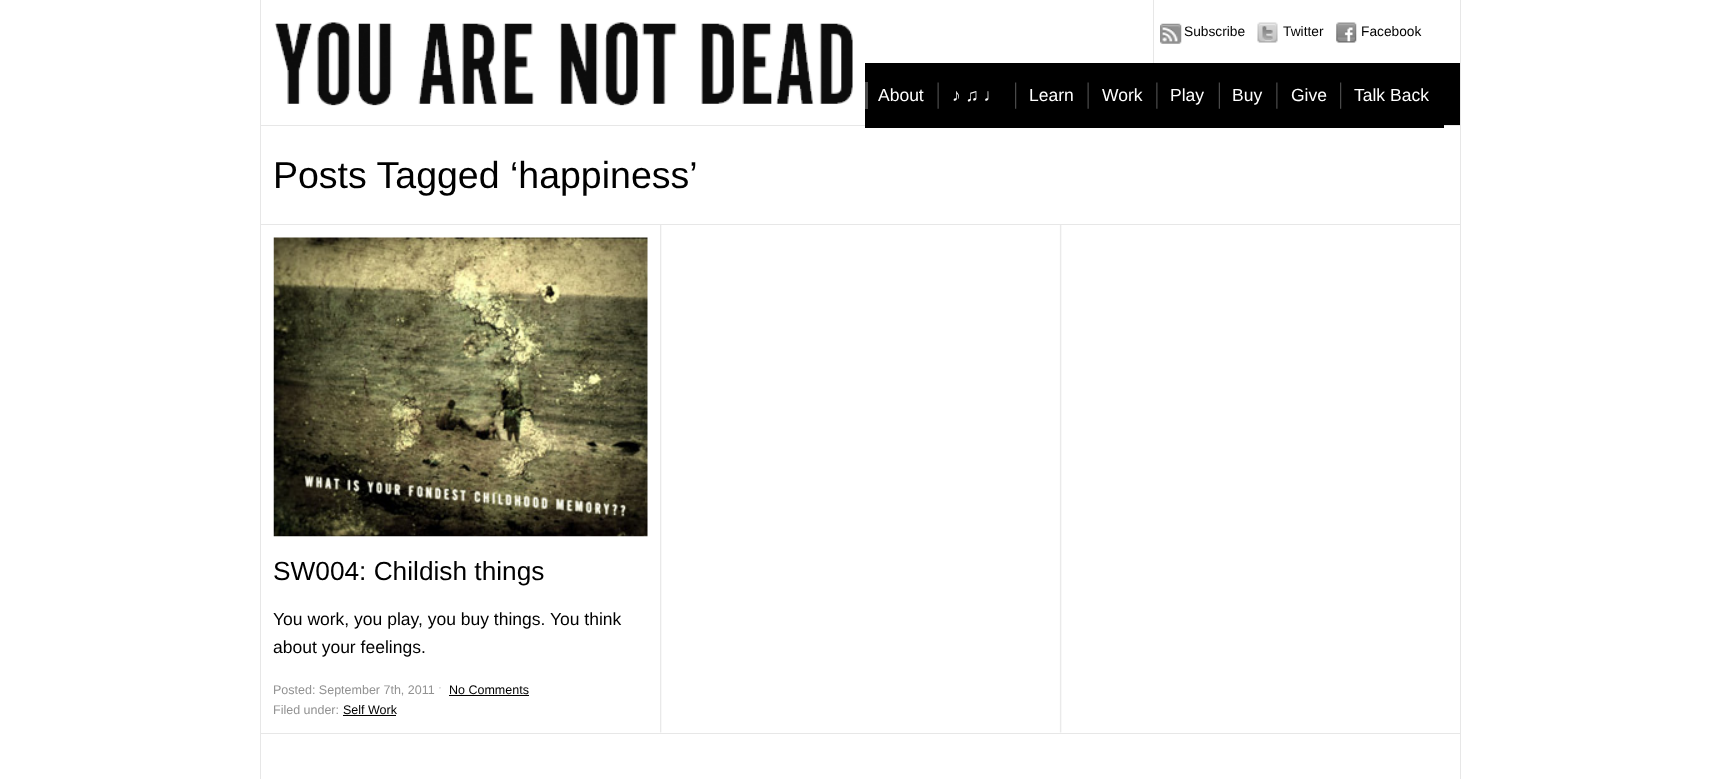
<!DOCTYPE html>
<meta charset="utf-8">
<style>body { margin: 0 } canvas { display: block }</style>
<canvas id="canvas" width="1720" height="779"></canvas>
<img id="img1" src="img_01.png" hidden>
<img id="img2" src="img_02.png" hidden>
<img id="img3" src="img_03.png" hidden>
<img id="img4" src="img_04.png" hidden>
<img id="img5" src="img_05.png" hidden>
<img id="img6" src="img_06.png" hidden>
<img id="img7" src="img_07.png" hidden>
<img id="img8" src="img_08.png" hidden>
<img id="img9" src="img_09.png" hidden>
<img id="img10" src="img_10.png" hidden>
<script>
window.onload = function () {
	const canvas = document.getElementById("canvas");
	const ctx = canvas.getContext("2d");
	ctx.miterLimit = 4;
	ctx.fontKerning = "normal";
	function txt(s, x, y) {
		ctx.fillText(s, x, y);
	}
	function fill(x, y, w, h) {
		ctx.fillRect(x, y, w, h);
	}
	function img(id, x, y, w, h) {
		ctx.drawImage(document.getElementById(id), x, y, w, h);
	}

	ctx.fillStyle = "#FFFFFF";
	fill(0, 0, 1720, 779);
	ctx.fillStyle = "#E7E7E7";
	fill(1460, 0, 1, 779);
	fill(260, 0, 1, 779);
	fill(261, 125, 1199, 1);
	img("img1", 274, 0, 591, 125);
	fill(1153, 0, 1, 63);
	img("img2", 1160, 23, 22, 21);
	img("img3", 1257, 22, 21, 21);
	img("img4", 1336, 22, 21, 21);
	ctx.fillStyle = "#000000";
	fill(1444, 63, 16, 62);
	fill(865, 63, 579, 65);
	ctx.fillStyle = "#494949";
	fill(865, 82, 3, 27);
	img("img5", 937, 82, 2, 27);
	img("img6", 1015, 82, 2, 27);
	img("img5", 1087, 82, 2, 27);
	img("img7", 1156, 82, 2, 27);
	img("img8", 1218, 82, 2, 27);
	img("img7", 1276, 82, 2, 27);
	img("img6", 1340, 82, 2, 27);
	ctx.fillStyle = "#E7E7E7";
	fill(261, 224, 1199, 1);
	img("img9", 660, 225, 402, 508);
	img("img10", 273, 237, 375, 300);
	ctx.fillStyle = "#000000";
	fill(449, 695, 80, 1);
	fill(343, 715, 53, 1);
	ctx.fillStyle = "#E7E7E7";
	fill(261, 733, 1199, 1);
	ctx.font = "13.75px Liberation Sans";
	ctx.fillStyle = "#000000";
	txt("Subscribe", 1184, 36);
	txt("Twitter", 1283, 36);
	txt("Facebook", 1361, 36);
	ctx.font = "17.5px Liberation Sans";
	ctx.fillStyle = "#FFFFFF";
	txt("About", 878, 101);
	txt("♪ ♫ ♩", 952, 101);
	txt("Learn", 1029, 101);
	txt("Work", 1102, 101);
	txt("Play", 1170, 101);
	txt("Buy", 1232, 101);
	txt("Give", 1291, 101);
	txt("Talk Back", 1354, 101);
	ctx.font = "37.5px Liberation Sans";
	ctx.fillStyle = "#000000";
	txt("Posts Tagged ‘happiness’", 273, 188);
	ctx.font = "26.25px Liberation Sans";
	txt("SW004: Childish things", 273, 580);
	ctx.font = "17.5px Liberation Sans";
	txt("You work, you play, you buy things. You think", 273, 625);
	txt("about your feelings.", 273, 653);
	ctx.font = "12.5px Liberation Sans";
	ctx.fillStyle = "#929292";
	txt("Posted: September 7th, 2011 ˑ", 273, 694);
	ctx.fillStyle = "#000000";
	txt("No Comments", 449, 694);
	ctx.fillStyle = "#929292";
	txt("Filed under:", 273, 714);
	ctx.fillStyle = "#000000";
	txt("Self Work", 343, 714);
};
</script>
